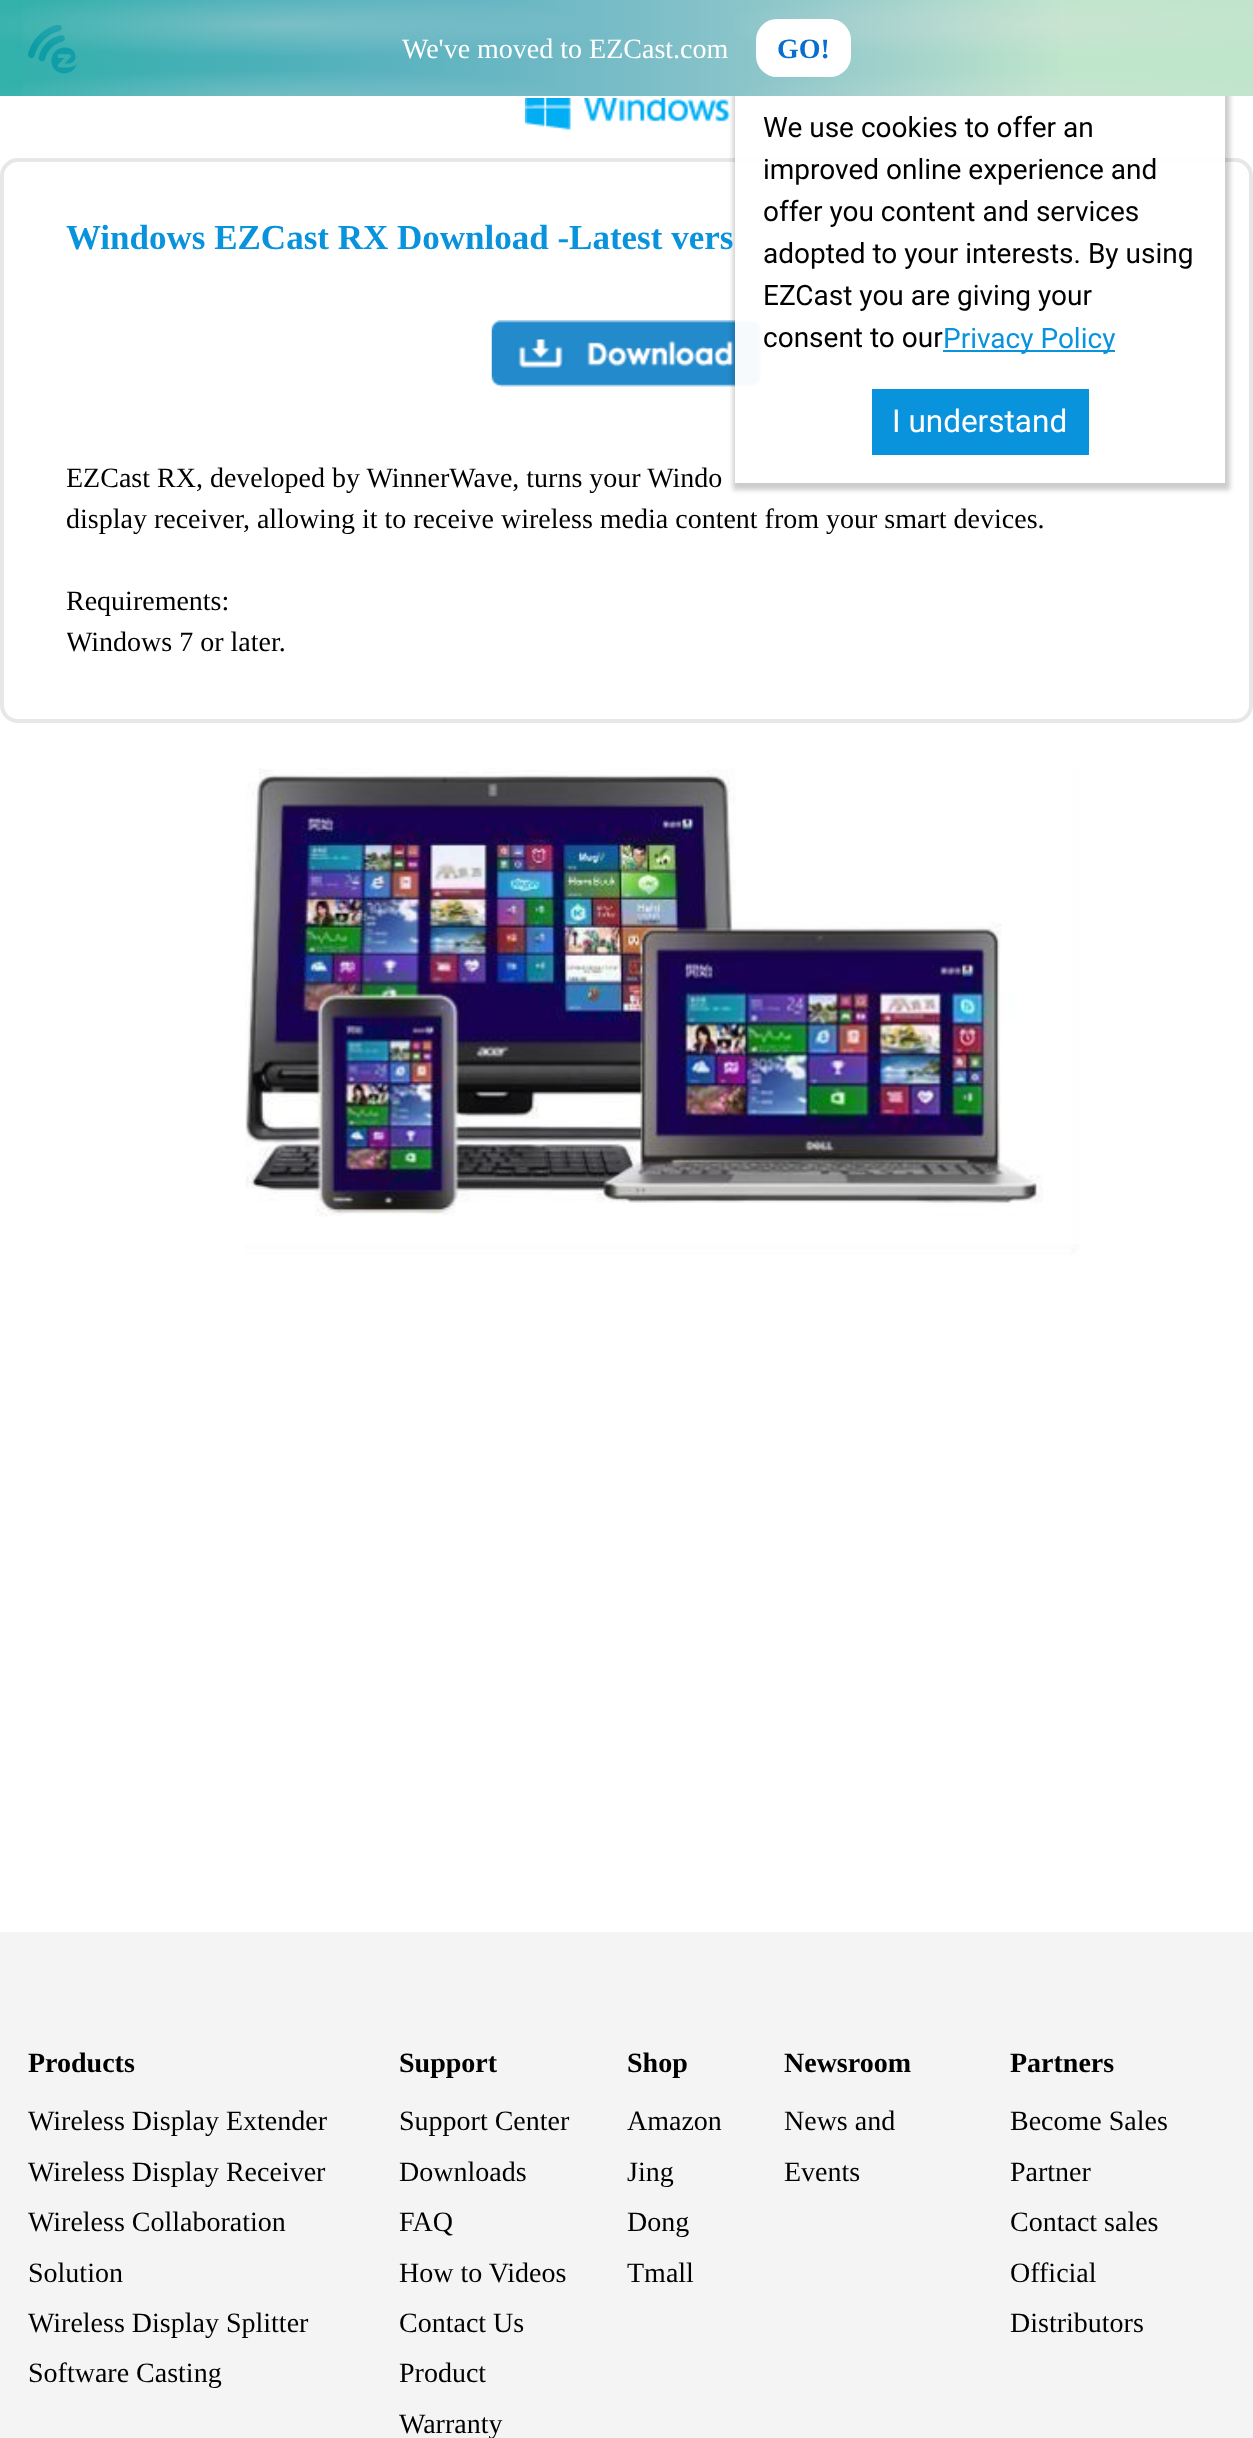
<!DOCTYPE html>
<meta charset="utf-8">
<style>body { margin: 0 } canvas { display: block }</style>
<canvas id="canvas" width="1253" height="2438"></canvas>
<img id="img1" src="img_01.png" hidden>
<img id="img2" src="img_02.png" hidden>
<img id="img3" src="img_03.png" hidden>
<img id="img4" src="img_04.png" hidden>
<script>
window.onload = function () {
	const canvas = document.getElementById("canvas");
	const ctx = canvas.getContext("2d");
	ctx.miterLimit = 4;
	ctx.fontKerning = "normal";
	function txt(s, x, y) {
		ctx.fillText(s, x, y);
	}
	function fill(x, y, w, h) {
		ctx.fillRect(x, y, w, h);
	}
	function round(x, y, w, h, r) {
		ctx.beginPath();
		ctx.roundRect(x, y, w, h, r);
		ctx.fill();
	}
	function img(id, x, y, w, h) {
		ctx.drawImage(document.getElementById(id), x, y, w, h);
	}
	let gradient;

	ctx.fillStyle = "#FFFFFF";
	fill(0, 0, 1253, 2438);
	img("img1", 28, 25, 49, 49);
	img("img2", 525, 98, 205, 32);
	ctx.beginPath();
	ctx.roundRect(2, 160, 1249, 561, 16);
	ctx.strokeStyle = "#E6E7E8";
	ctx.lineWidth = 4;
	ctx.stroke();
	img("img3", 491, 320, 271, 67);
	ctx.save();
	ctx.beginPath();
	ctx.moveTo(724, 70);
	ctx.lineTo(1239, 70);
	ctx.lineTo(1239, 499);
	ctx.lineTo(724, 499);
	ctx.closePath();
	ctx.moveTo(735, 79);
	ctx.lineTo(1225, 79);
	ctx.lineTo(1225, 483);
	ctx.lineTo(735, 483);
	ctx.closePath();
	ctx.clip("evenodd");
	ctx.fillStyle = "rgba(0, 0, 0, 0.2)";
	ctx.filter = "blur(2.5px)";
	ctx.beginPath();
	ctx.rect(733, 79, 497, 411);
	ctx.fill();
	ctx.filter = "none";
	ctx.restore();
	gradient = ctx.createLinearGradient(1253, 48, 0, 48);
	gradient.addColorStop(0, "#0A6ECE");
	gradient.addColorStop(0.3, "#0A6ECE");
	gradient.addColorStop(1, "rgba(0, 158, 150, 0.8)");
	ctx.fillStyle = gradient;
	fill(0, 0, 1059, 96);
	gradient = ctx.createLinearGradient(1253, 48, 0, 48);
	gradient.addColorStop(0, "#BFE5CB");
	gradient.addColorStop(0.15, "#BFE5CB");
	gradient.addColorStop(1, "rgba(191, 229, 203, 0)");
	ctx.fillStyle = gradient;
	fill(23, 0, 1230, 96);
	gradient = ctx.createRadialGradient(276, 246.3, 0, 276, 246.3, 532);
	gradient.addColorStop(0, "rgba(225, 225, 225, 0.3)");
	gradient.addColorStop(0.6, "rgba(225, 225, 225, 0)");
	ctx.fillStyle = gradient;
	ctx.beginPath();
	ctx.rect(0, 0, 573, 55);
	ctx.save();
	ctx.clip();
	ctx.scale(1, 54 / 532);
	ctx.fillRect(0, 0, 1253, 24019);
	ctx.restore();
	gradient = ctx.createRadialGradient(1027, 246.3, 0, 1027, 246.3, 532);
	gradient.addColorStop(0, "rgba(225, 225, 225, 0.3)");
	gradient.addColorStop(0.6, "rgba(225, 225, 225, 0)");
	ctx.fillStyle = gradient;
	ctx.beginPath();
	ctx.rect(733, 0, 520, 52);
	ctx.save();
	ctx.clip();
	ctx.scale(1, 54 / 532);
	ctx.fillRect(0, 0, 1253, 24019);
	ctx.restore();
	gradient = ctx.createRadialGradient(276, 1004.89, 0, 276, 1004.89, 532);
	gradient.addColorStop(0, "rgba(225, 225, 225, 0.3)");
	gradient.addColorStop(0.6, "rgba(225, 225, 225, 0)");
	ctx.fillStyle = gradient;
	ctx.beginPath();
	ctx.rect(0, 72, 565, 24);
	ctx.save();
	ctx.clip();
	ctx.scale(1, 54 / 532);
	ctx.fillRect(0, 0, 1253, 24019);
	ctx.restore();
	gradient = ctx.createRadialGradient(1027, 1004.89, 0, 1027, 1004.89, 532);
	gradient.addColorStop(0, "rgba(225, 225, 225, 0.3)");
	gradient.addColorStop(0.6, "rgba(225, 225, 225, 0)");
	ctx.fillStyle = gradient;
	ctx.beginPath();
	ctx.rect(740, 75, 513, 21);
	ctx.save();
	ctx.clip();
	ctx.scale(1, 54 / 532);
	ctx.fillRect(0, 0, 1253, 24019);
	ctx.restore();
	ctx.fillStyle = "#FFFFFF";
	round(756, 19, 95, 58, 21);
	ctx.fillStyle = "rgba(255, 255, 255, 0.96)";
	fill(735, 158, 490, 229);
	ctx.fillStyle = "#0993DD";
	fill(943, 350, 172, 2);
	fill(872, 389, 217, 66);
	img("img4", 245, 768, 835, 487);
	ctx.fillStyle = "#F4F4F4";
	fill(0, 1932, 1253, 506);
	ctx.font = "28px Liberation Serif";
	ctx.fillStyle = "#FFFFFF";
	txt("We've moved to EZCast.com", 402, 58);
	ctx.font = "bold 28px Liberation Serif";
	ctx.fillStyle = "#0A6ECE";
	txt("GO!", 777, 58);
	ctx.font = "28px Roboto";
	ctx.fillStyle = "#000000";
	txt("We use cookies to offer an", 763, 137);
	txt("improved online experience and", 763, 179);
	txt("offer you content and services", 763, 221);
	txt("adopted to your interests. By using", 763, 263);
	txt("EZCast you are giving your", 763, 305);
	txt("consent to our", 763, 347);
	ctx.fillStyle = "#0993DD";
	txt("Privacy Policy", 943, 348);
	ctx.font = "31.5px Roboto";
	ctx.fillStyle = "#FFFFFF";
	txt("I understand", 892, 432);
	ctx.font = "bold 35px Liberation Serif";
	ctx.fillStyle = "#0993DD";
	txt("Windows EZCast RX Download -Latest vers", 66, 249);
	ctx.save();
	ctx.beginPath();
	ctx.rect(67, 443, 1120, 276);
	ctx.clip();
	ctx.font = "28px Liberation Serif";
	ctx.fillStyle = "#000000";
	txt("EZCast RX, developed by WinnerWave, turns your Windo", 66, 487);
	txt("display receiver, allowing it to receive wireless media content from your smart devices.", 66, 528);
	txt("Requirements:", 66, 610);
	txt("Windows 7 or later.", 66, 651);
	ctx.restore();
	ctx.font = "bold 28px Liberation Serif";
	ctx.fillStyle = "#000000";
	txt("Products", 28, 2072);
	ctx.font = "28px Liberation Serif";
	txt("Wireless Display Extender", 28, 2130);
	txt("Wireless Display Receiver", 28, 2181);
	txt("Wireless Collaboration", 28, 2231);
	txt("Solution", 28, 2282);
	txt("Wireless Display Splitter", 28, 2332);
	txt("Software Casting", 28, 2382);
	ctx.font = "bold 28px Liberation Serif";
	txt("Support", 399, 2072);
	ctx.font = "28px Liberation Serif";
	txt("Support Center", 399, 2130);
	txt("Downloads", 399, 2181);
	txt("FAQ", 399, 2231);
	txt("How to Videos", 399, 2282);
	txt("Contact Us", 399, 2332);
	txt("Product", 399, 2382);
	txt("Warranty", 399, 2433);
	ctx.font = "bold 28px Liberation Serif";
	txt("Shop", 627, 2072);
	ctx.font = "28px Liberation Serif";
	txt("Amazon", 627, 2130);
	txt("Jing", 627, 2181);
	txt("Dong", 627, 2231);
	txt("Tmall", 627, 2282);
	ctx.font = "bold 28px Liberation Serif";
	txt("Newsroom", 784, 2072);
	ctx.font = "28px Liberation Serif";
	txt("News and", 784, 2130);
	txt("Events", 784, 2181);
	ctx.font = "bold 28px Liberation Serif";
	txt("Partners", 1010, 2072);
	ctx.font = "28px Liberation Serif";
	txt("Become Sales", 1010, 2130);
	txt("Partner", 1010, 2181);
	txt("Contact sales", 1010, 2231);
	txt("Official", 1010, 2282);
	txt("Distributors", 1010, 2332);
};
</script>
